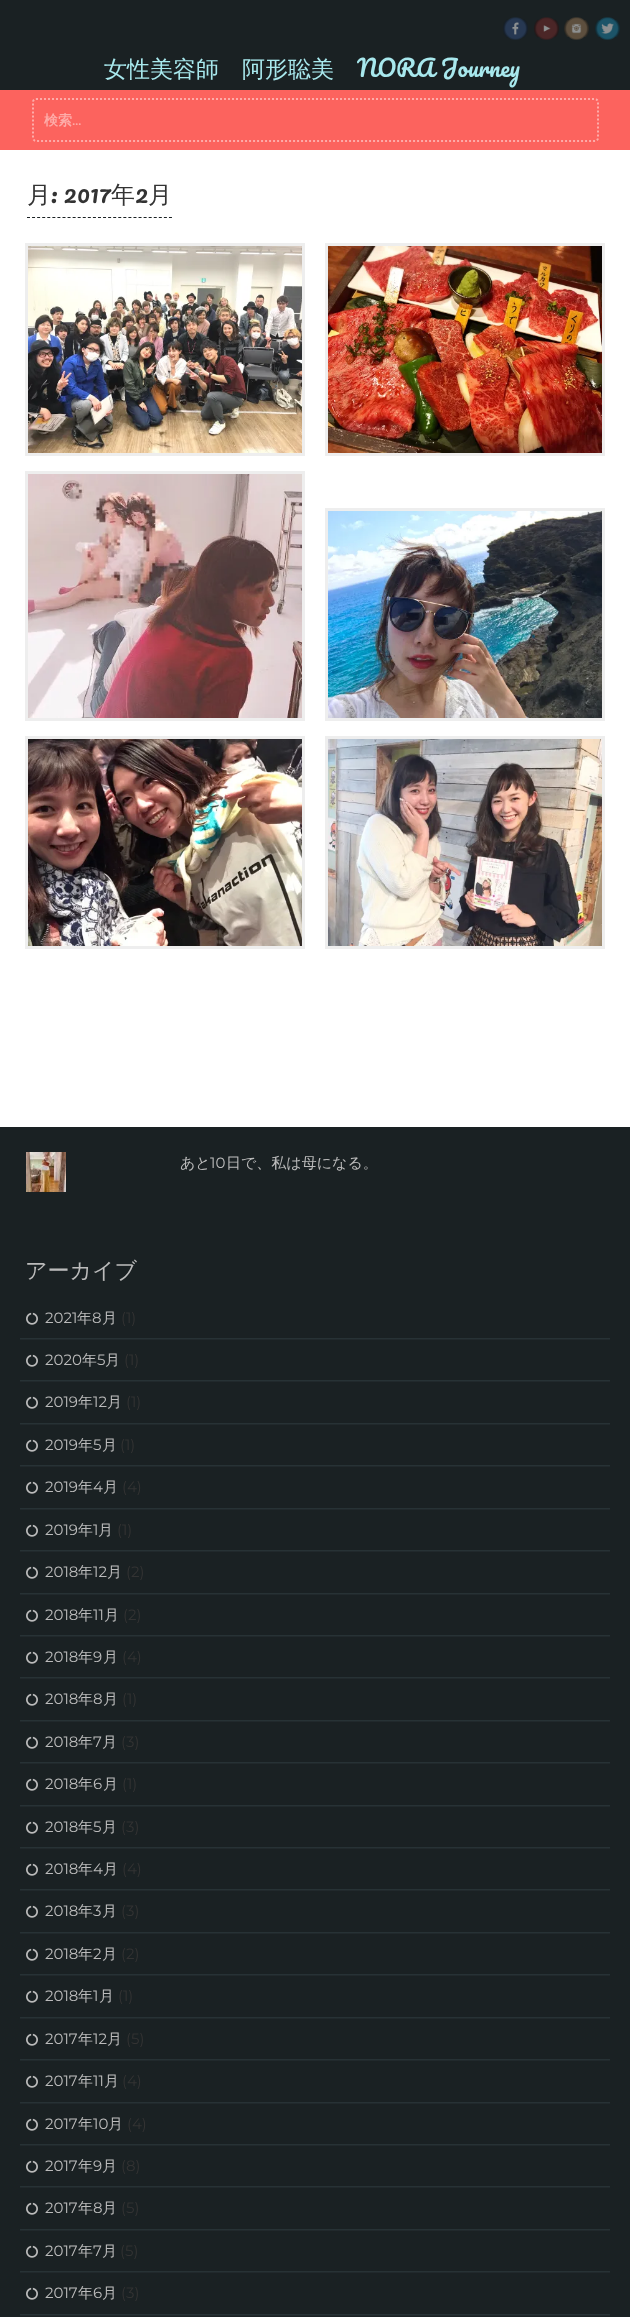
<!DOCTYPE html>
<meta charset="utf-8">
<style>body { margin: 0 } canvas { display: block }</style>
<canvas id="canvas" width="630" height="2317"></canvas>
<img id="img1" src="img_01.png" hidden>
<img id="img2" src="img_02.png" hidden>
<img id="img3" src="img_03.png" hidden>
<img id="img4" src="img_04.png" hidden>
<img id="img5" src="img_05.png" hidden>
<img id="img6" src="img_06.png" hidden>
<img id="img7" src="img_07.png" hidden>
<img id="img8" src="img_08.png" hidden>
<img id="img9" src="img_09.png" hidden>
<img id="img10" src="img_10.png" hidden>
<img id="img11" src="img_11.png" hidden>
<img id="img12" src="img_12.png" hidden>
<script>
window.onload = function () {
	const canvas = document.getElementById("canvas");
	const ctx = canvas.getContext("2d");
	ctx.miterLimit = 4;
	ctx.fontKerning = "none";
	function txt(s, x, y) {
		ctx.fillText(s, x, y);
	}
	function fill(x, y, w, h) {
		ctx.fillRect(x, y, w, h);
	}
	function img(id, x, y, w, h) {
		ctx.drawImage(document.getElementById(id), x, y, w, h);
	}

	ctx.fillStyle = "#FFFFFF";
	fill(0, 0, 630, 2317);
	ctx.fillStyle = "#1A2123";
	fill(0, 0, 630, 90);
	img("img1", 503, 17, 25, 23);
	img("img2", 534, 17, 25, 23);
	img("img3", 564, 17, 25, 23);
	img("img4", 595, 17, 25, 23);
	ctx.fillStyle = "#FC635E";
	fill(0, 90, 630, 60);
	ctx.beginPath();
	ctx.moveTo(36, 99);
	ctx.lineTo(595, 99);
	ctx.bezierCurveTo(596.5, 99, 598, 100.5, 598, 102);
	ctx.lineTo(598, 138);
	ctx.bezierCurveTo(598, 139.5, 596.5, 141, 595, 141);
	ctx.lineTo(36, 141);
	ctx.bezierCurveTo(34.5, 141, 33, 139.5, 33, 138);
	ctx.lineTo(33, 102);
	ctx.bezierCurveTo(33, 100.5, 34.5, 99, 36, 99);
	ctx.closePath();
	ctx.strokeStyle = "#FDACA9";
	ctx.lineWidth = 2;
	ctx.setLineDash([2, 2]);
	ctx.stroke();
	ctx.beginPath();
	ctx.moveTo(27, 217.5);
	ctx.lineTo(172, 217.5);
	ctx.strokeStyle = "#1A2123";
	ctx.lineWidth = 1;
	ctx.setLineDash([3, 2.07]);
	ctx.stroke();
	ctx.strokeStyle = "#EEEEEE";
	ctx.lineWidth = 3;
	ctx.setLineDash([]);
	ctx.strokeRect(26.5, 244.5, 277, 210);
	img("img5", 28, 246, 274, 207);
	ctx.strokeRect(326.5, 244.5, 277, 210);
	img("img6", 328, 246, 274, 207);
	ctx.strokeRect(26.5, 472.5, 277, 247);
	img("img7", 28, 474, 274, 244);
	ctx.strokeRect(326.5, 509.5, 277, 210);
	img("img8", 328, 511, 274, 207);
	ctx.strokeRect(26.5, 737.5, 277, 210);
	img("img9", 28, 739, 274, 207);
	ctx.strokeRect(326.5, 737.5, 277, 210);
	img("img10", 328, 739, 274, 207);
	ctx.fillStyle = "#1A2123";
	fill(0, 1127, 630, 1190);
	img("img11", 26, 1152, 40, 40);
	ctx.fillStyle = "#21292C";
	fill(20, 1339, 590, 1);
	ctx.fillStyle = "#273235";
	fill(20, 1338, 590, 1);
	img("img12", 26, 1312, 12, 13);
	ctx.fillStyle = "#21292C";
	fill(20, 1381, 590, 1);
	ctx.fillStyle = "#273235";
	fill(20, 1380, 590, 1);
	img("img12", 26, 1354, 12, 13);
	ctx.fillStyle = "#21292C";
	fill(20, 1424, 590, 1);
	ctx.fillStyle = "#273235";
	fill(20, 1423, 590, 1);
	img("img12", 26, 1396, 12, 13);
	ctx.fillStyle = "#21292C";
	fill(20, 1466, 590, 1);
	ctx.fillStyle = "#273235";
	fill(20, 1465, 590, 1);
	img("img12", 26, 1439, 12, 13);
	ctx.fillStyle = "#21292C";
	fill(20, 1509, 590, 1);
	ctx.fillStyle = "#273235";
	fill(20, 1508, 590, 1);
	img("img12", 26, 1481, 12, 13);
	ctx.fillStyle = "#21292C";
	fill(20, 1551, 590, 1);
	ctx.fillStyle = "#273235";
	fill(20, 1550, 590, 1);
	img("img12", 26, 1524, 12, 13);
	ctx.fillStyle = "#21292C";
	fill(20, 1594, 590, 1);
	ctx.fillStyle = "#273235";
	fill(20, 1593, 590, 1);
	img("img12", 26, 1566, 12, 13);
	ctx.fillStyle = "#21292C";
	fill(20, 1636, 590, 1);
	ctx.fillStyle = "#273235";
	fill(20, 1635, 590, 1);
	img("img12", 26, 1609, 12, 13);
	ctx.fillStyle = "#21292C";
	fill(20, 1678, 590, 1);
	ctx.fillStyle = "#273235";
	fill(20, 1677, 590, 1);
	img("img12", 26, 1651, 12, 13);
	ctx.fillStyle = "#21292C";
	fill(20, 1721, 590, 1);
	ctx.fillStyle = "#273235";
	fill(20, 1720, 590, 1);
	img("img12", 26, 1693, 12, 13);
	ctx.fillStyle = "#21292C";
	fill(20, 1763, 590, 1);
	ctx.fillStyle = "#273235";
	fill(20, 1762, 590, 1);
	img("img12", 26, 1736, 12, 13);
	ctx.fillStyle = "#21292C";
	fill(20, 1806, 590, 1);
	ctx.fillStyle = "#273235";
	fill(20, 1805, 590, 1);
	img("img12", 26, 1778, 12, 13);
	ctx.fillStyle = "#21292C";
	fill(20, 1848, 590, 1);
	ctx.fillStyle = "#273235";
	fill(20, 1847, 590, 1);
	img("img12", 26, 1821, 12, 13);
	ctx.fillStyle = "#21292C";
	fill(20, 1890, 590, 1);
	ctx.fillStyle = "#273235";
	fill(20, 1889, 590, 1);
	img("img12", 26, 1863, 12, 13);
	ctx.fillStyle = "#21292C";
	fill(20, 1933, 590, 1);
	ctx.fillStyle = "#273235";
	fill(20, 1932, 590, 1);
	img("img12", 26, 1905, 12, 13);
	ctx.fillStyle = "#21292C";
	fill(20, 1975, 590, 1);
	ctx.fillStyle = "#273235";
	fill(20, 1974, 590, 1);
	img("img12", 26, 1948, 12, 13);
	ctx.fillStyle = "#21292C";
	fill(20, 2018, 590, 1);
	ctx.fillStyle = "#273235";
	fill(20, 2017, 590, 1);
	img("img12", 26, 1990, 12, 13);
	ctx.fillStyle = "#21292C";
	fill(20, 2060, 590, 1);
	ctx.fillStyle = "#273235";
	fill(20, 2059, 590, 1);
	img("img12", 26, 2033, 12, 13);
	ctx.fillStyle = "#21292C";
	fill(20, 2103, 590, 1);
	ctx.fillStyle = "#273235";
	fill(20, 2102, 590, 1);
	img("img12", 26, 2075, 12, 13);
	ctx.fillStyle = "#21292C";
	fill(20, 2145, 590, 1);
	ctx.fillStyle = "#273235";
	fill(20, 2144, 590, 1);
	img("img12", 26, 2118, 12, 13);
	ctx.fillStyle = "#21292C";
	fill(20, 2187, 590, 1);
	ctx.fillStyle = "#273235";
	fill(20, 2186, 590, 1);
	img("img12", 26, 2160, 12, 13);
	ctx.fillStyle = "#21292C";
	fill(20, 2230, 590, 1);
	ctx.fillStyle = "#273235";
	fill(20, 2229, 590, 1);
	img("img12", 26, 2202, 12, 13);
	ctx.fillStyle = "#21292C";
	fill(20, 2272, 590, 1);
	ctx.fillStyle = "#273235";
	fill(20, 2271, 590, 1);
	img("img12", 26, 2245, 12, 13);
	ctx.fillStyle = "#21292C";
	fill(20, 2315, 590, 1);
	ctx.fillStyle = "#273235";
	fill(20, 2314, 590, 1);
	img("img12", 26, 2287, 12, 13);
	ctx.font = "500 23px WenQuanYi Zen Hei";
	ctx.fillStyle = "#A8E8ED";
	txt("女性美容師　阿形聡美", 104, 77);
	ctx.font = "23px Pacifico";
	txt("NORA Journey", 357, 77);
	ctx.font = "bold 14px WenQuanYi Zen Hei";
	ctx.fillStyle = "#FDACA9";
	txt("検索", 44, 125);
	ctx.font = "bold 14px Montserrat";
	txt("…", 72, 125);
	ctx.font = "500 24px WenQuanYi Zen Hei";
	ctx.fillStyle = "#333333";
	txt("月", 27, 203);
	ctx.font = "24px Pacifico";
	txt(": 2017", 51, 203);
	ctx.font = "500 24px WenQuanYi Zen Hei";
	txt("年", 111, 203);
	ctx.font = "24px Pacifico";
	txt("2", 135, 203);
	ctx.font = "500 24px WenQuanYi Zen Hei";
	txt("月", 148, 203);
	ctx.font = "500 15px WenQuanYi Zen Hei";
	ctx.fillStyle = "#BBBBBB";
	txt("あと", 180, 1168);
	ctx.font = "100 15px Montserrat";
	txt("10", 210, 1168);
	ctx.font = "500 15px WenQuanYi Zen Hei";
	txt("日で、私は母になる。", 226, 1168);
	ctx.font = "500 22px WenQuanYi Zen Hei";
	txt("アーカイブ", 25, 1278);
	ctx.font = "100 15px Montserrat";
	txt("2021", 45, 1323);
	ctx.font = "500 15px WenQuanYi Zen Hei";
	txt("年", 77, 1323);
	ctx.font = "100 15px Montserrat";
	txt("8", 92, 1323);
	ctx.font = "500 15px WenQuanYi Zen Hei";
	txt("月", 102, 1323);
	ctx.font = "100 15px Montserrat";
	ctx.fillStyle = "#333333";
	txt("(1)", 121, 1323);
	ctx.fillStyle = "#BBBBBB";
	txt("2020", 45, 1365);
	ctx.font = "500 15px WenQuanYi Zen Hei";
	txt("年", 82, 1365);
	ctx.font = "100 15px Montserrat";
	txt("5", 97, 1365);
	ctx.font = "500 15px WenQuanYi Zen Hei";
	txt("月", 105, 1365);
	ctx.font = "100 15px Montserrat";
	ctx.fillStyle = "#333333";
	txt("(1)", 124, 1365);
	ctx.fillStyle = "#BBBBBB";
	txt("2019", 45, 1407);
	ctx.font = "500 15px WenQuanYi Zen Hei";
	txt("年", 78, 1407);
	ctx.font = "100 15px Montserrat";
	txt("12", 93, 1407);
	ctx.font = "500 15px WenQuanYi Zen Hei";
	txt("月", 107, 1407);
	ctx.font = "100 15px Montserrat";
	ctx.fillStyle = "#333333";
	txt("(1)", 126, 1407);
	ctx.fillStyle = "#BBBBBB";
	txt("2019", 45, 1450);
	ctx.font = "500 15px WenQuanYi Zen Hei";
	txt("年", 78, 1450);
	ctx.font = "100 15px Montserrat";
	txt("5", 93, 1450);
	ctx.font = "500 15px WenQuanYi Zen Hei";
	txt("月", 102, 1450);
	ctx.font = "100 15px Montserrat";
	ctx.fillStyle = "#333333";
	txt("(1)", 120, 1450);
	ctx.fillStyle = "#BBBBBB";
	txt("2019", 45, 1492);
	ctx.font = "500 15px WenQuanYi Zen Hei";
	txt("年", 78, 1492);
	ctx.font = "100 15px Montserrat";
	txt("4", 93, 1492);
	ctx.font = "500 15px WenQuanYi Zen Hei";
	txt("月", 103, 1492);
	ctx.font = "100 15px Montserrat";
	ctx.fillStyle = "#333333";
	txt("(4)", 122, 1492);
	ctx.fillStyle = "#BBBBBB";
	txt("2019", 45, 1535);
	ctx.font = "500 15px WenQuanYi Zen Hei";
	txt("年", 78, 1535);
	ctx.font = "100 15px Montserrat";
	txt("1", 93, 1535);
	ctx.font = "500 15px WenQuanYi Zen Hei";
	txt("月", 98, 1535);
	ctx.font = "100 15px Montserrat";
	ctx.fillStyle = "#333333";
	txt("(1)", 117, 1535);
	ctx.fillStyle = "#BBBBBB";
	txt("2018", 45, 1577);
	ctx.font = "500 15px WenQuanYi Zen Hei";
	txt("年", 78, 1577);
	ctx.font = "100 15px Montserrat";
	txt("12", 93, 1577);
	ctx.font = "500 15px WenQuanYi Zen Hei";
	txt("月", 107, 1577);
	ctx.font = "100 15px Montserrat";
	ctx.fillStyle = "#333333";
	txt("(2)", 126, 1577);
	ctx.fillStyle = "#BBBBBB";
	txt("2018", 45, 1620);
	ctx.font = "500 15px WenQuanYi Zen Hei";
	txt("年", 78, 1620);
	ctx.font = "100 15px Montserrat";
	txt("11", 93, 1620);
	ctx.font = "500 15px WenQuanYi Zen Hei";
	txt("月", 104, 1620);
	ctx.font = "100 15px Montserrat";
	ctx.fillStyle = "#333333";
	txt("(2)", 123, 1620);
	ctx.fillStyle = "#BBBBBB";
	txt("2018", 45, 1662);
	ctx.font = "500 15px WenQuanYi Zen Hei";
	txt("年", 78, 1662);
	ctx.font = "100 15px Montserrat";
	txt("9", 93, 1662);
	ctx.font = "500 15px WenQuanYi Zen Hei";
	txt("月", 103, 1662);
	ctx.font = "100 15px Montserrat";
	ctx.fillStyle = "#333333";
	txt("(4)", 122, 1662);
	ctx.fillStyle = "#BBBBBB";
	txt("2018", 45, 1704);
	ctx.font = "500 15px WenQuanYi Zen Hei";
	txt("年", 78, 1704);
	ctx.font = "100 15px Montserrat";
	txt("8", 93, 1704);
	ctx.font = "500 15px WenQuanYi Zen Hei";
	txt("月", 103, 1704);
	ctx.font = "100 15px Montserrat";
	ctx.fillStyle = "#333333";
	txt("(1)", 122, 1704);
	ctx.fillStyle = "#BBBBBB";
	txt("2018", 45, 1747);
	ctx.font = "500 15px WenQuanYi Zen Hei";
	txt("年", 78, 1747);
	ctx.font = "100 15px Montserrat";
	txt("7", 93, 1747);
	ctx.font = "500 15px WenQuanYi Zen Hei";
	txt("月", 102, 1747);
	ctx.font = "100 15px Montserrat";
	ctx.fillStyle = "#333333";
	txt("(3)", 121, 1747);
	ctx.fillStyle = "#BBBBBB";
	txt("2018", 45, 1789);
	ctx.font = "500 15px WenQuanYi Zen Hei";
	txt("年", 78, 1789);
	ctx.font = "100 15px Montserrat";
	txt("6", 93, 1789);
	ctx.font = "500 15px WenQuanYi Zen Hei";
	txt("月", 103, 1789);
	ctx.font = "100 15px Montserrat";
	ctx.fillStyle = "#333333";
	txt("(1)", 122, 1789);
	ctx.fillStyle = "#BBBBBB";
	txt("2018", 45, 1832);
	ctx.font = "500 15px WenQuanYi Zen Hei";
	txt("年", 78, 1832);
	ctx.font = "100 15px Montserrat";
	txt("5", 93, 1832);
	ctx.font = "500 15px WenQuanYi Zen Hei";
	txt("月", 102, 1832);
	ctx.font = "100 15px Montserrat";
	ctx.fillStyle = "#333333";
	txt("(3)", 121, 1832);
	ctx.fillStyle = "#BBBBBB";
	txt("2018", 45, 1874);
	ctx.font = "500 15px WenQuanYi Zen Hei";
	txt("年", 78, 1874);
	ctx.font = "100 15px Montserrat";
	txt("4", 93, 1874);
	ctx.font = "500 15px WenQuanYi Zen Hei";
	txt("月", 103, 1874);
	ctx.font = "100 15px Montserrat";
	ctx.fillStyle = "#333333";
	txt("(4)", 122, 1874);
	ctx.fillStyle = "#BBBBBB";
	txt("2018", 45, 1916);
	ctx.font = "500 15px WenQuanYi Zen Hei";
	txt("年", 78, 1916);
	ctx.font = "100 15px Montserrat";
	txt("3", 93, 1916);
	ctx.font = "500 15px WenQuanYi Zen Hei";
	txt("月", 102, 1916);
	ctx.font = "100 15px Montserrat";
	ctx.fillStyle = "#333333";
	txt("(3)", 121, 1916);
	ctx.fillStyle = "#BBBBBB";
	txt("2018", 45, 1959);
	ctx.font = "500 15px WenQuanYi Zen Hei";
	txt("年", 78, 1959);
	ctx.font = "100 15px Montserrat";
	txt("2", 93, 1959);
	ctx.font = "500 15px WenQuanYi Zen Hei";
	txt("月", 102, 1959);
	ctx.font = "100 15px Montserrat";
	ctx.fillStyle = "#333333";
	txt("(2)", 121, 1959);
	ctx.fillStyle = "#BBBBBB";
	txt("2018", 45, 2001);
	ctx.font = "500 15px WenQuanYi Zen Hei";
	txt("年", 78, 2001);
	ctx.font = "100 15px Montserrat";
	txt("1", 93, 2001);
	ctx.font = "500 15px WenQuanYi Zen Hei";
	txt("月", 99, 2001);
	ctx.font = "100 15px Montserrat";
	ctx.fillStyle = "#333333";
	txt("(1)", 118, 2001);
	ctx.fillStyle = "#BBBBBB";
	txt("2017", 45, 2044);
	ctx.font = "500 15px WenQuanYi Zen Hei";
	txt("年", 78, 2044);
	ctx.font = "100 15px Montserrat";
	txt("12", 93, 2044);
	ctx.font = "500 15px WenQuanYi Zen Hei";
	txt("月", 107, 2044);
	ctx.font = "100 15px Montserrat";
	ctx.fillStyle = "#333333";
	txt("(5)", 126, 2044);
	ctx.fillStyle = "#BBBBBB";
	txt("2017", 45, 2086);
	ctx.font = "500 15px WenQuanYi Zen Hei";
	txt("年", 78, 2086);
	ctx.font = "100 15px Montserrat";
	txt("11", 93, 2086);
	ctx.font = "500 15px WenQuanYi Zen Hei";
	txt("月", 104, 2086);
	ctx.font = "100 15px Montserrat";
	ctx.fillStyle = "#333333";
	txt("(4)", 122, 2086);
	ctx.fillStyle = "#BBBBBB";
	txt("2017", 45, 2129);
	ctx.font = "500 15px WenQuanYi Zen Hei";
	txt("年", 78, 2129);
	ctx.font = "100 15px Montserrat";
	txt("10", 93, 2129);
	ctx.font = "500 15px WenQuanYi Zen Hei";
	txt("月", 108, 2129);
	ctx.font = "100 15px Montserrat";
	ctx.fillStyle = "#333333";
	txt("(4)", 127, 2129);
	ctx.fillStyle = "#BBBBBB";
	txt("2017", 45, 2171);
	ctx.font = "500 15px WenQuanYi Zen Hei";
	txt("年", 78, 2171);
	ctx.font = "100 15px Montserrat";
	txt("9", 93, 2171);
	ctx.font = "500 15px WenQuanYi Zen Hei";
	txt("月", 102, 2171);
	ctx.font = "100 15px Montserrat";
	ctx.fillStyle = "#333333";
	txt("(8)", 121, 2171);
	ctx.fillStyle = "#BBBBBB";
	txt("2017", 45, 2213);
	ctx.font = "500 15px WenQuanYi Zen Hei";
	txt("年", 78, 2213);
	ctx.font = "100 15px Montserrat";
	txt("8", 93, 2213);
	ctx.font = "500 15px WenQuanYi Zen Hei";
	txt("月", 102, 2213);
	ctx.font = "100 15px Montserrat";
	ctx.fillStyle = "#333333";
	txt("(5)", 121, 2213);
	ctx.fillStyle = "#BBBBBB";
	txt("2017", 45, 2256);
	ctx.font = "500 15px WenQuanYi Zen Hei";
	txt("年", 78, 2256);
	ctx.font = "100 15px Montserrat";
	txt("7", 93, 2256);
	ctx.font = "500 15px WenQuanYi Zen Hei";
	txt("月", 102, 2256);
	ctx.font = "100 15px Montserrat";
	ctx.fillStyle = "#333333";
	txt("(5)", 120, 2256);
	ctx.fillStyle = "#BBBBBB";
	txt("2017", 45, 2298);
	ctx.font = "500 15px WenQuanYi Zen Hei";
	txt("年", 78, 2298);
	ctx.font = "100 15px Montserrat";
	txt("6", 93, 2298);
	ctx.font = "500 15px WenQuanYi Zen Hei";
	txt("月", 102, 2298);
	ctx.font = "100 15px Montserrat";
	ctx.fillStyle = "#333333";
	txt("(3)", 121, 2298);
};
</script>
